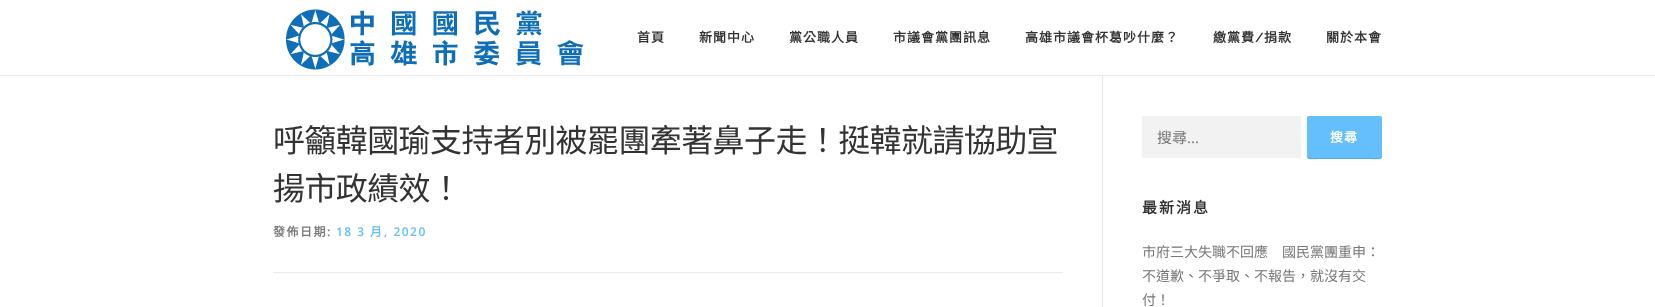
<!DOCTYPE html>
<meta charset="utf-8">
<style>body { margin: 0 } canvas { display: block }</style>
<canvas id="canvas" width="1655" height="307"></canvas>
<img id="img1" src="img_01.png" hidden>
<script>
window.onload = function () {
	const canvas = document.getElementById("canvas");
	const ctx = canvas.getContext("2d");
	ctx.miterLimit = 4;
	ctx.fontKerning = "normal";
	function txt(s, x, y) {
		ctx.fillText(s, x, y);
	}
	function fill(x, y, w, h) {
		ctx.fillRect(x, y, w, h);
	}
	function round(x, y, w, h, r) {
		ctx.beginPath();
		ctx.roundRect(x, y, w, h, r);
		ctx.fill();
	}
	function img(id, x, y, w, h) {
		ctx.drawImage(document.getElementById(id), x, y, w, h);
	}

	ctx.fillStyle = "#FFFFFF";
	fill(0, 0, 1655, 307);
	img("img1", 286, 9, 298, 61);
	ctx.fillStyle = "#E9E9E9";
	fill(0, 75, 1655, 1);
	fill(1102, 76, 1, 231);
	fill(273, 272, 790, 1);
	ctx.fillStyle = "#F2F2F2";
	fill(1142, 116, 159, 42);
	ctx.fillStyle = "#64BFFC";
	round(1307, 116, 75, 43, 2);
	ctx.fillStyle = "rgba(0, 0, 0, 0.1)";
	ctx.beginPath();
	ctx.moveTo(1307, 156);
	ctx.bezierCurveTo(1307, 162, 1318, 159, 1321, 159);
	ctx.lineTo(1368, 159);
	ctx.bezierCurveTo(1371, 159, 1382, 162, 1382, 156);
	ctx.bezierCurveTo(1382, 157, 1381, 158, 1380, 158);
	ctx.lineTo(1309, 158);
	ctx.bezierCurveTo(1308, 158, 1307, 157, 1307, 156);
	ctx.closePath();
	ctx.fill();
	ctx.letterSpacing = "1px";
	ctx.font = "bold 13px Noto Sans CJK TC";
	ctx.fillStyle = "#333333";
	txt("首頁", 637, 42);
	txt("新聞中心", 699, 42);
	txt("黨公職人員", 789, 42);
	txt("市議會黨團訊息", 893, 42);
	txt("高雄市議會杯葛吵什麼？", 1025, 42);
	txt("繳黨費", 1213, 42);
	ctx.font = "600 13px Raleway";
	txt("/", 1255, 42);
	ctx.font = "bold 13px Noto Sans CJK TC";
	txt("捐款", 1264, 42);
	txt("關於本會", 1326, 42);
	ctx.letterSpacing = "-0.6px";
	ctx.font = "32px Noto Sans CJK TC";
	txt("呼籲韓國瑜支持者別被罷團牽著鼻子走！挺韓就請協助宣", 273, 152);
	txt("揚市政績效！", 273, 200);
	ctx.letterSpacing = "1.5px";
	ctx.font = "bold 12px Noto Sans CJK TC";
	ctx.fillStyle = "#777777";
	txt("發佈日期", 273, 236);
	ctx.font = "600 12px Open Sans";
	txt(":", 327, 236);
	ctx.fillStyle = "#64BFFC";
	txt("18 3", 336, 236);
	ctx.font = "bold 12px Noto Sans CJK TC";
	txt("月", 370, 236);
	ctx.font = "600 12px Open Sans";
	txt(", 2020", 384, 236);
	ctx.letterSpacing = "0px";
	ctx.font = "15px Noto Sans CJK TC";
	ctx.fillStyle = "#777777";
	txt("搜尋", 1157, 143);
	ctx.font = "15px Open Sans";
	txt("...", 1187, 143);
	ctx.letterSpacing = "1px";
	ctx.font = "bold 13px Noto Sans CJK TC";
	ctx.fillStyle = "#FFFFFF";
	txt("搜尋", 1330, 142);
	ctx.letterSpacing = "2px";
	ctx.font = "bold 15px Noto Sans CJK TC";
	ctx.fillStyle = "#333333";
	txt("最新消息", 1142, 213);
	ctx.letterSpacing = "0px";
	ctx.font = "14px Noto Sans CJK TC";
	ctx.fillStyle = "#777777";
	txt("市府三大失職不回應　國民黨團重申：", 1142, 257);
	txt("不道歉、不爭取、不報告，就沒有交", 1142, 281);
	txt("付！", 1142, 305);
};
</script>
